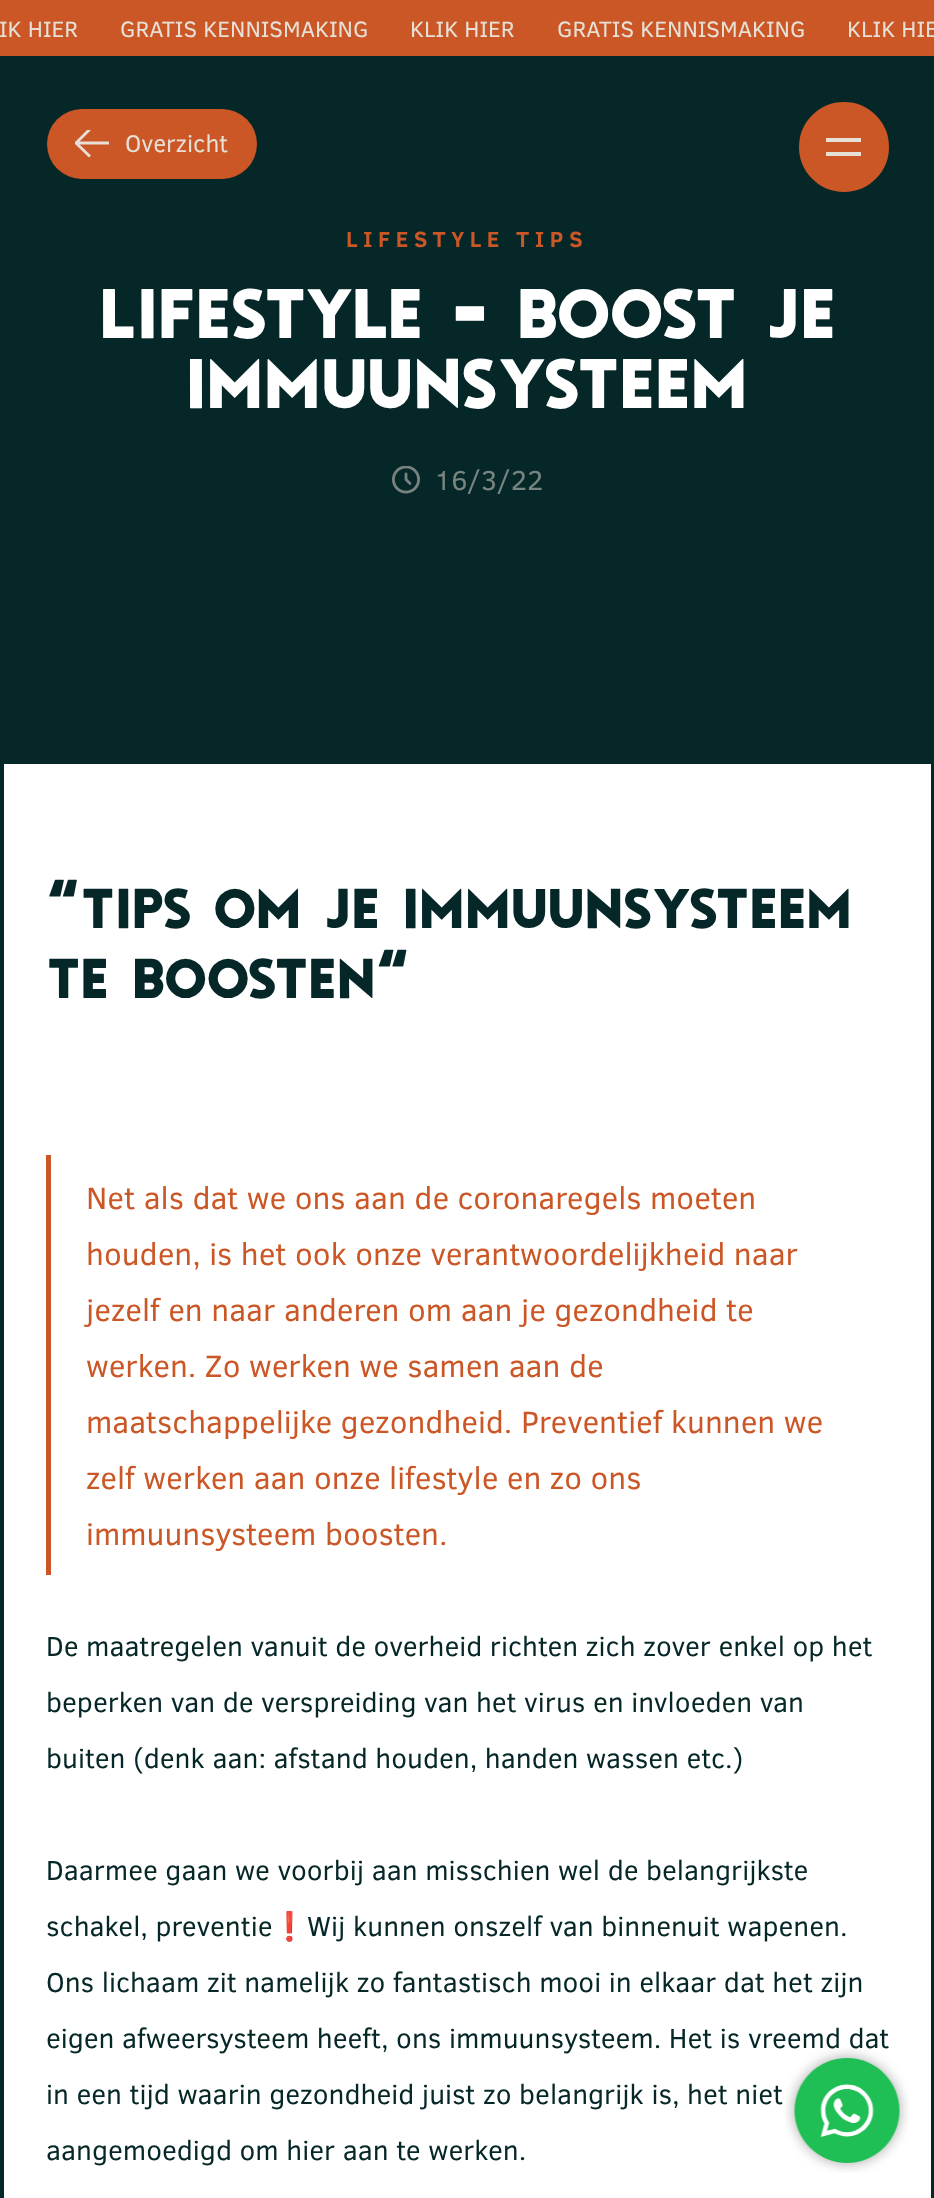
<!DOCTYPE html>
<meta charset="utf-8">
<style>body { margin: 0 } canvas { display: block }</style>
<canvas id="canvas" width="934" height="2198"></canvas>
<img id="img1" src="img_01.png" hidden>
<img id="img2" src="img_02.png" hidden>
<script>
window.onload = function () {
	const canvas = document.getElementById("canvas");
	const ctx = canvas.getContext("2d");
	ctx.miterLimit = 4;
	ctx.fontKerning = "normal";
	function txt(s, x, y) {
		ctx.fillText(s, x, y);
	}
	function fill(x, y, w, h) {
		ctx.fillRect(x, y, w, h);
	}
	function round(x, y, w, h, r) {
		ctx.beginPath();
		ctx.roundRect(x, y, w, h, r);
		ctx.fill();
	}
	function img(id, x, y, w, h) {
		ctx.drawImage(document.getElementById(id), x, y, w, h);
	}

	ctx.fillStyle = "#062728";
	fill(0, 0, 934, 2198);
	ctx.fillStyle = "#CB5726";
	fill(0, 0, 934, 56);
	ctx.beginPath();
	ctx.arc(844, 147, 47, 0, Math.PI * 2);
	ctx.fill();
	ctx.strokeStyle = "#062728";
	ctx.lineWidth = 4;
	ctx.stroke();
	ctx.fillStyle = "#E7E0D6";
	fill(826, 138, 35, 4);
	fill(826, 152, 35, 4);
	ctx.fillStyle = "#CB5726";
	round(47, 109, 210, 70, 35);
	ctx.save();
	ctx.beginPath();
	ctx.rect(75, 130, 35, 28);
	ctx.clip();
	ctx.fillStyle = "#E7E0D6";
	ctx.beginPath();
	ctx.moveTo(109, 144.5);
	ctx.lineTo(79.5, 144.5);
	ctx.lineTo(91, 155.5);
	ctx.lineTo(89, 157.5);
	ctx.lineTo(74, 143);
	ctx.lineTo(89, 128);
	ctx.lineTo(91, 130);
	ctx.lineTo(79.5, 141.5);
	ctx.lineTo(109, 141.5);
	ctx.closePath();
	ctx.fill();
	ctx.restore();
	img("img1", 392, 466, 28, 28);
	ctx.fillStyle = "#FFFFFF";
	fill(4, 764, 927, 1434);
	ctx.fillStyle = "#CB5726";
	fill(46, 1155, 5, 420);
	ctx.font = "22.75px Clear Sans";
	ctx.fillStyle = "#E7E0D6";
	txt("IK HIER", -1, 37);
	txt("GRATIS KENNISMAKING", 120, 37);
	txt("KLIK HIER", 410, 37);
	txt("GRATIS KENNISMAKING", 557, 37);
	txt("KLIK HIE", 847, 37);
	ctx.font = "24.5px Clear Sans";
	txt("Overzicht", 125, 152);
	ctx.letterSpacing = "5.6px";
	ctx.font = "bold 22.4px Clear Sans";
	ctx.fillStyle = "#CB5726";
	txt("LIFESTYLE TIPS", 346, 247);
	ctx.letterSpacing = "0px";
	ctx.font = "bold 70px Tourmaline";
	ctx.fillStyle = "#FFFFFF";
	txt("LIFESTYLE - BOOST JE", 99, 338);
	txt("IMMUUNSYSTEEM", 186, 408);
	ctx.font = "28px Clear Sans";
	ctx.fillStyle = "#77847F";
	txt("16/3/22", 434, 490);
	ctx.font = "bold 56px Tourmaline";
	ctx.fillStyle = "#062728";
	txt("\"Tips om je immuunsysteem", 46, 928);
	txt("te boosten\"", 46, 998);
	ctx.font = "31.5px Clear Sans";
	ctx.fillStyle = "#CB5726";
	txt("Net als dat we ons aan de coronaregels moeten", 86, 1209);
	txt("houden, is het ook onze verantwoordelijkheid naar", 86, 1265);
	txt("jezelf en naar anderen om aan je gezondheid te", 86, 1321);
	txt("werken. Zo werken we samen aan de", 86, 1377);
	txt("maatschappelijke gezondheid. Preventief kunnen we", 86, 1433);
	txt("zelf werken aan onze lifestyle en zo ons", 86, 1489);
	txt("immuunsysteem boosten.", 86, 1545);
	ctx.font = "28px Clear Sans";
	ctx.fillStyle = "#062728";
	txt("De maatregelen vanuit de overheid richten zich zover enkel op het", 46, 1656);
	txt("beperken van de verspreiding van het virus en invloeden van", 46, 1712);
	txt("buiten (denk aan: afstand houden, handen wassen etc.)", 46, 1768);
	txt("Daarmee gaan we voorbij aan misschien wel de belangrijkste", 46, 1880);
	txt("schakel, preventie", 46, 1936);
	ctx.font = "28px Noto Color Emoji";
	txt("❗️", 272, 1936);
	ctx.font = "28px Clear Sans";
	txt("Wij kunnen onszelf van binnenuit wapenen.", 307, 1936);
	txt("Ons lichaam zit namelijk zo fantastisch mooi in elkaar dat het zijn", 46, 1992);
	txt("eigen afweersysteem heeft, ons immuunsysteem. Het is vreemd dat", 46, 2048);
	txt("in een tijd waarin gezondheid juist zo belangrijk is, het niet", 46, 2104);
	txt("aangemoedigd om hier aan te werken.", 46, 2160);
	img("img2", 785, 2048, 124, 125);
};
</script>
